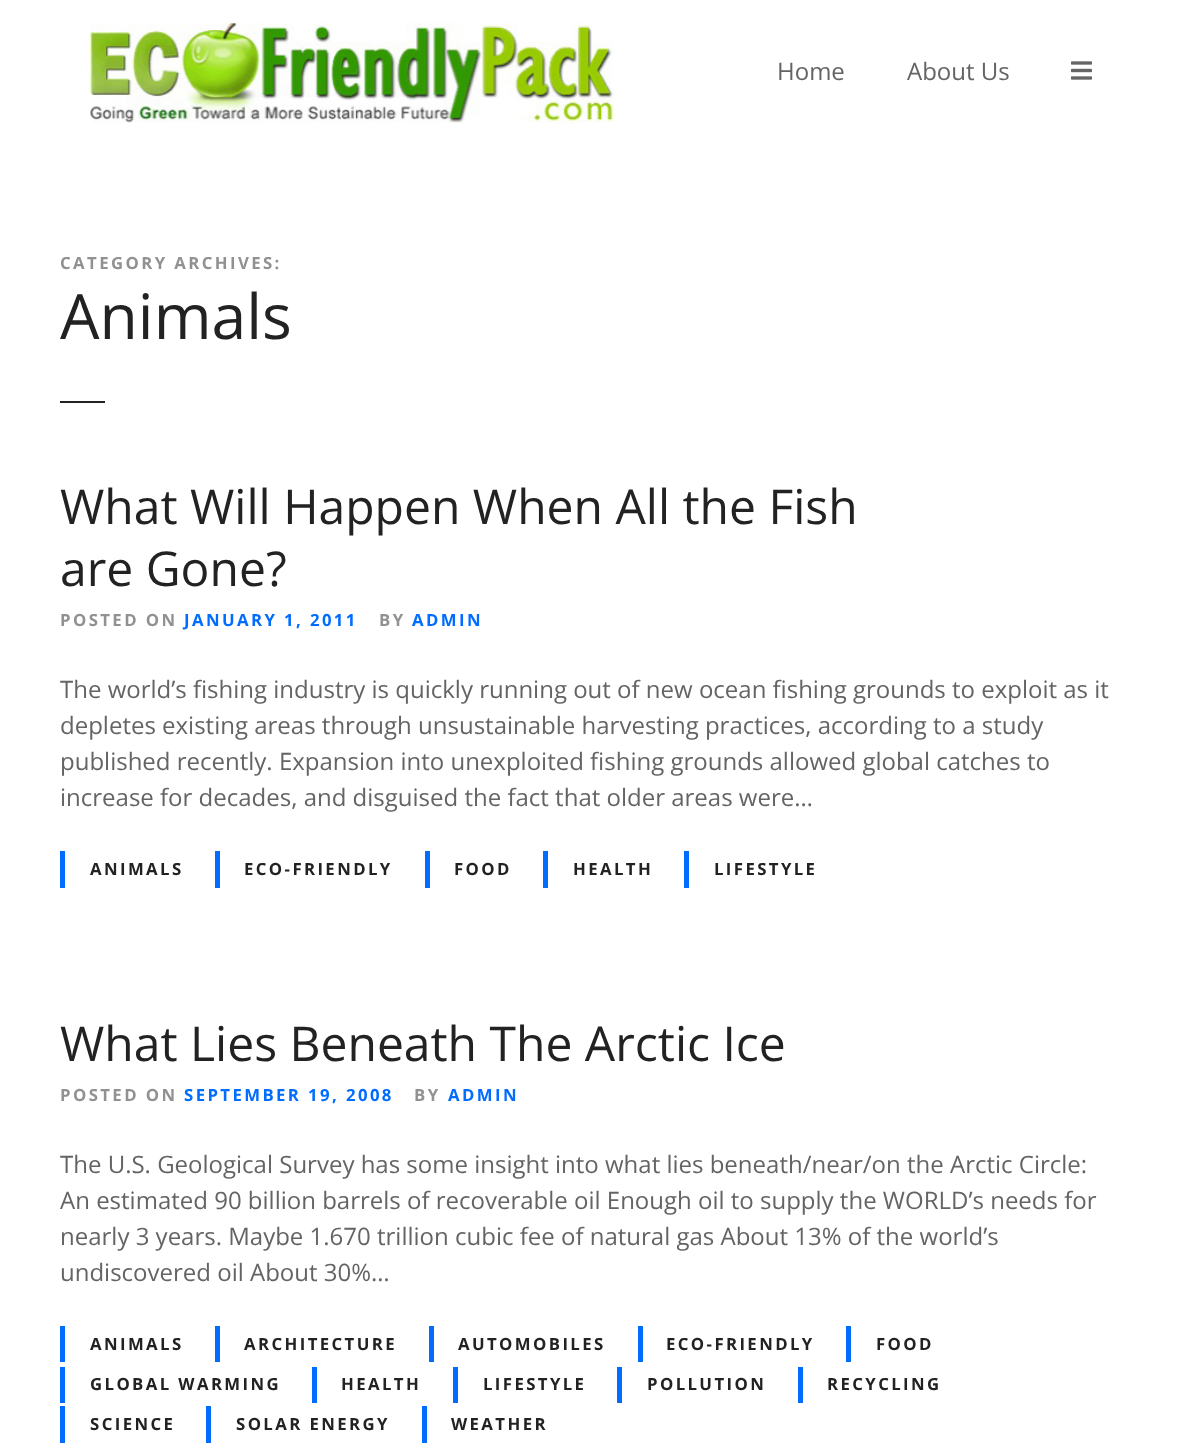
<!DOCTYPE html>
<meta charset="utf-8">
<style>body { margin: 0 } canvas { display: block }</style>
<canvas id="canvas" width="1182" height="1454"></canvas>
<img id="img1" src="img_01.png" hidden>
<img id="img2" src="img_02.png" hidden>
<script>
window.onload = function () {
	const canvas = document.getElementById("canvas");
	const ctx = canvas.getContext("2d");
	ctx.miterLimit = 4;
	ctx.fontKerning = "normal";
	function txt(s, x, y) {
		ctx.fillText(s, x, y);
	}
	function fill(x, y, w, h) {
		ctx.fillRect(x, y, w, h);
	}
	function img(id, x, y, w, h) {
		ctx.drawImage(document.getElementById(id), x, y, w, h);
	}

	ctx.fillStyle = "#FFFFFF";
	fill(0, 0, 1182, 1454);
	img("img1", 90, 22, 524, 101);
	img("img2", 1071, 61, 21, 19);
	ctx.fillStyle = "#222222";
	fill(60, 401, 45, 2);
	ctx.fillStyle = "#016DFF";
	fill(60, 851, 5, 37);
	fill(215, 851, 5, 37);
	fill(425, 851, 5, 37);
	fill(543, 851, 5, 37);
	fill(684, 851, 5, 37);
	fill(60, 1326, 5, 36);
	fill(215, 1326, 5, 36);
	fill(429, 1326, 5, 36);
	fill(638, 1326, 5, 36);
	fill(846, 1326, 5, 36);
	fill(60, 1367, 5, 36);
	fill(312, 1367, 5, 36);
	fill(453, 1367, 5, 36);
	fill(617, 1367, 5, 36);
	fill(798, 1367, 5, 36);
	fill(60, 1406, 5, 37);
	fill(206, 1406, 5, 37);
	fill(422, 1406, 5, 37);
	ctx.font = "24px Open Sans";
	ctx.fillStyle = "#646464";
	txt("Home", 777, 80);
	txt("About Us", 907, 80);
	ctx.letterSpacing = "2.4px";
	ctx.font = "bold 16.75px Open Sans";
	ctx.fillStyle = "#919191";
	txt("CATEGORY ARCHIVES:", 60, 269);
	ctx.letterSpacing = "0px";
	ctx.font = "62.5px Open Sans";
	ctx.fillStyle = "#222222";
	txt("Animals", 60, 339);
	ctx.font = "48px Open Sans";
	txt("What Will Happen When All the Fish", 60, 524);
	txt("are Gone?", 60, 586);
	ctx.letterSpacing = "2.4px";
	ctx.font = "bold 16.75px Open Sans";
	ctx.fillStyle = "#919191";
	txt("POSTED ON", 60, 626);
	ctx.fillStyle = "#016DFF";
	txt("JANUARY 1, 2011", 184, 626);
	ctx.fillStyle = "#919191";
	txt("BY", 379, 626);
	ctx.fillStyle = "#016DFF";
	txt("ADMIN", 412, 626);
	ctx.letterSpacing = "0px";
	ctx.font = "24px Open Sans";
	ctx.fillStyle = "#646464";
	txt("The world’s fishing industry is quickly running out of new ocean fishing grounds to exploit as it", 60, 698);
	txt("depletes existing areas through unsustainable harvesting practices, according to a study", 60, 734);
	txt("published recently. Expansion into unexploited fishing grounds allowed global catches to", 60, 770);
	txt("increase for decades, and disguised the fact that older areas were…", 60, 806);
	ctx.letterSpacing = "2.4px";
	ctx.font = "bold 16.75px Open Sans";
	ctx.fillStyle = "#222222";
	txt("ANIMALS", 90, 875);
	txt("ECO-FRIENDLY", 244, 875);
	txt("FOOD", 454, 875);
	txt("HEALTH", 573, 875);
	txt("LIFESTYLE", 714, 875);
	ctx.letterSpacing = "0px";
	ctx.font = "48px Open Sans";
	txt("What Lies Beneath The Arctic Ice", 60, 1061);
	ctx.letterSpacing = "2.4px";
	ctx.font = "bold 16.75px Open Sans";
	ctx.fillStyle = "#919191";
	txt("POSTED ON", 60, 1101);
	ctx.fillStyle = "#016DFF";
	txt("SEPTEMBER 19, 2008", 184, 1101);
	ctx.fillStyle = "#919191";
	txt("BY", 414, 1101);
	ctx.fillStyle = "#016DFF";
	txt("ADMIN", 448, 1101);
	ctx.letterSpacing = "0px";
	ctx.font = "24px Open Sans";
	ctx.fillStyle = "#646464";
	txt("The U.S. Geological Survey has some insight into what lies beneath/near/on the Arctic Circle:", 60, 1173);
	txt("An estimated 90 billion barrels of recoverable oil Enough oil to supply the WORLD’s needs for", 60, 1209);
	txt("nearly 3 years. Maybe 1.670 trillion cubic fee of natural gas About 13% of the world’s", 60, 1245);
	txt("undiscovered oil About 30%…", 60, 1281);
	ctx.letterSpacing = "2.4px";
	ctx.font = "bold 16.75px Open Sans";
	ctx.fillStyle = "#222222";
	txt("ANIMALS", 90, 1350);
	txt("ARCHITECTURE", 244, 1350);
	txt("AUTOMOBILES", 458, 1350);
	txt("ECO-FRIENDLY", 666, 1350);
	txt("FOOD", 876, 1350);
	txt("GLOBAL WARMING", 90, 1390);
	txt("HEALTH", 341, 1390);
	txt("LIFESTYLE", 483, 1390);
	txt("POLLUTION", 647, 1390);
	txt("RECYCLING", 827, 1390);
	txt("SCIENCE", 90, 1430);
	txt("SOLAR ENERGY", 236, 1430);
	txt("WEATHER", 451, 1430);
};
</script>
